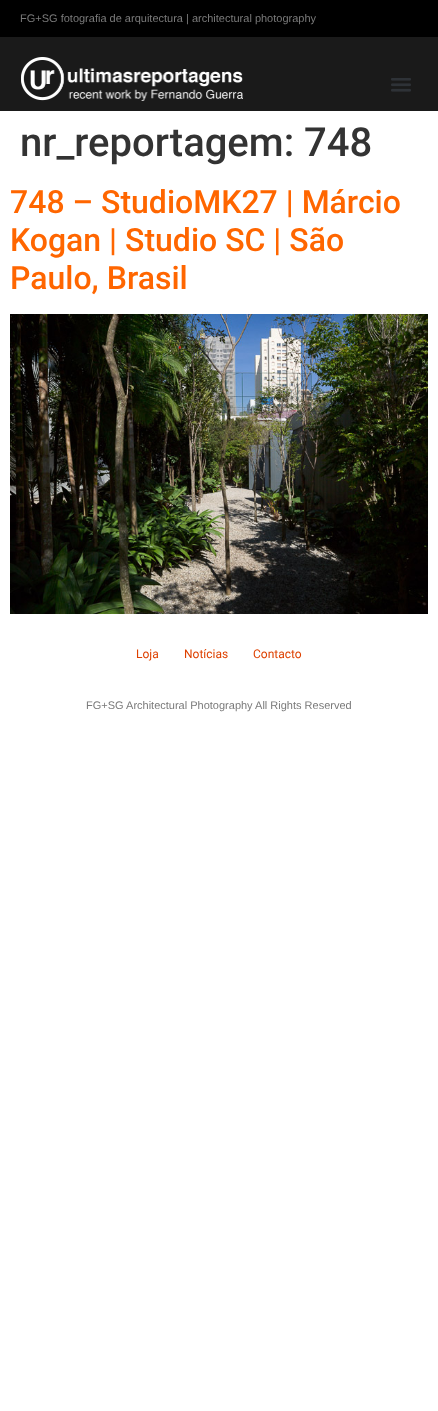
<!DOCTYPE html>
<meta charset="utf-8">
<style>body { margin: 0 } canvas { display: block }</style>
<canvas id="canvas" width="438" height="1411"></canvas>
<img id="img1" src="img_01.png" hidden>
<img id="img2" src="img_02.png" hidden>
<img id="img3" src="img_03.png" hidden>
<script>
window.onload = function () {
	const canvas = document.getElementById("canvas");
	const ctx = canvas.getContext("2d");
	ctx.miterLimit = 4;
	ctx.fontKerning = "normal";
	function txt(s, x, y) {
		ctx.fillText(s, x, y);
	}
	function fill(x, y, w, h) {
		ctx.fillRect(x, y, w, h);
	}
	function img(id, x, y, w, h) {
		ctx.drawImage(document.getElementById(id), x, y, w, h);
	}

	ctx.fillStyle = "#FFFFFF";
	fill(0, 0, 438, 1411);
	ctx.fillStyle = "#000000";
	fill(0, 0, 438, 37);
	ctx.fillStyle = "#1A1A1A";
	fill(0, 37, 438, 74);
	img("img1", 21, 57, 222, 44);
	img("img2", 391, 78, 20, 14);
	img("img3", 10, 314, 418, 300);
	ctx.font = "11px Liberation Sans";
	ctx.fillStyle = "#7A7A7A";
	txt("FG+SG fotografia de arquitectura | architectural photography", 20, 22);
	ctx.font = "500 40px Roboto";
	ctx.fillStyle = "#333333";
	txt("nr_reportagem: 748", 20, 156);
	ctx.font = "500 32px Roboto";
	ctx.fillStyle = "#FF6600";
	txt("748 – StudioMK27 | Márcio", 10, 213);
	txt("Kogan | Studio SC | São", 10, 251);
	txt("Paulo, Brasil", 10, 289);
	ctx.font = "12px Roboto";
	ctx.fillStyle = "#DE4100";
	txt("Loja", 136, 658);
	txt("Notícias", 184, 658);
	txt("Contacto", 253, 658);
	ctx.font = "11px Liberation Sans";
	ctx.fillStyle = "#7A7A7A";
	txt("FG+SG Architectural Photography All Rights Reserved", 86, 709);
};
</script>
